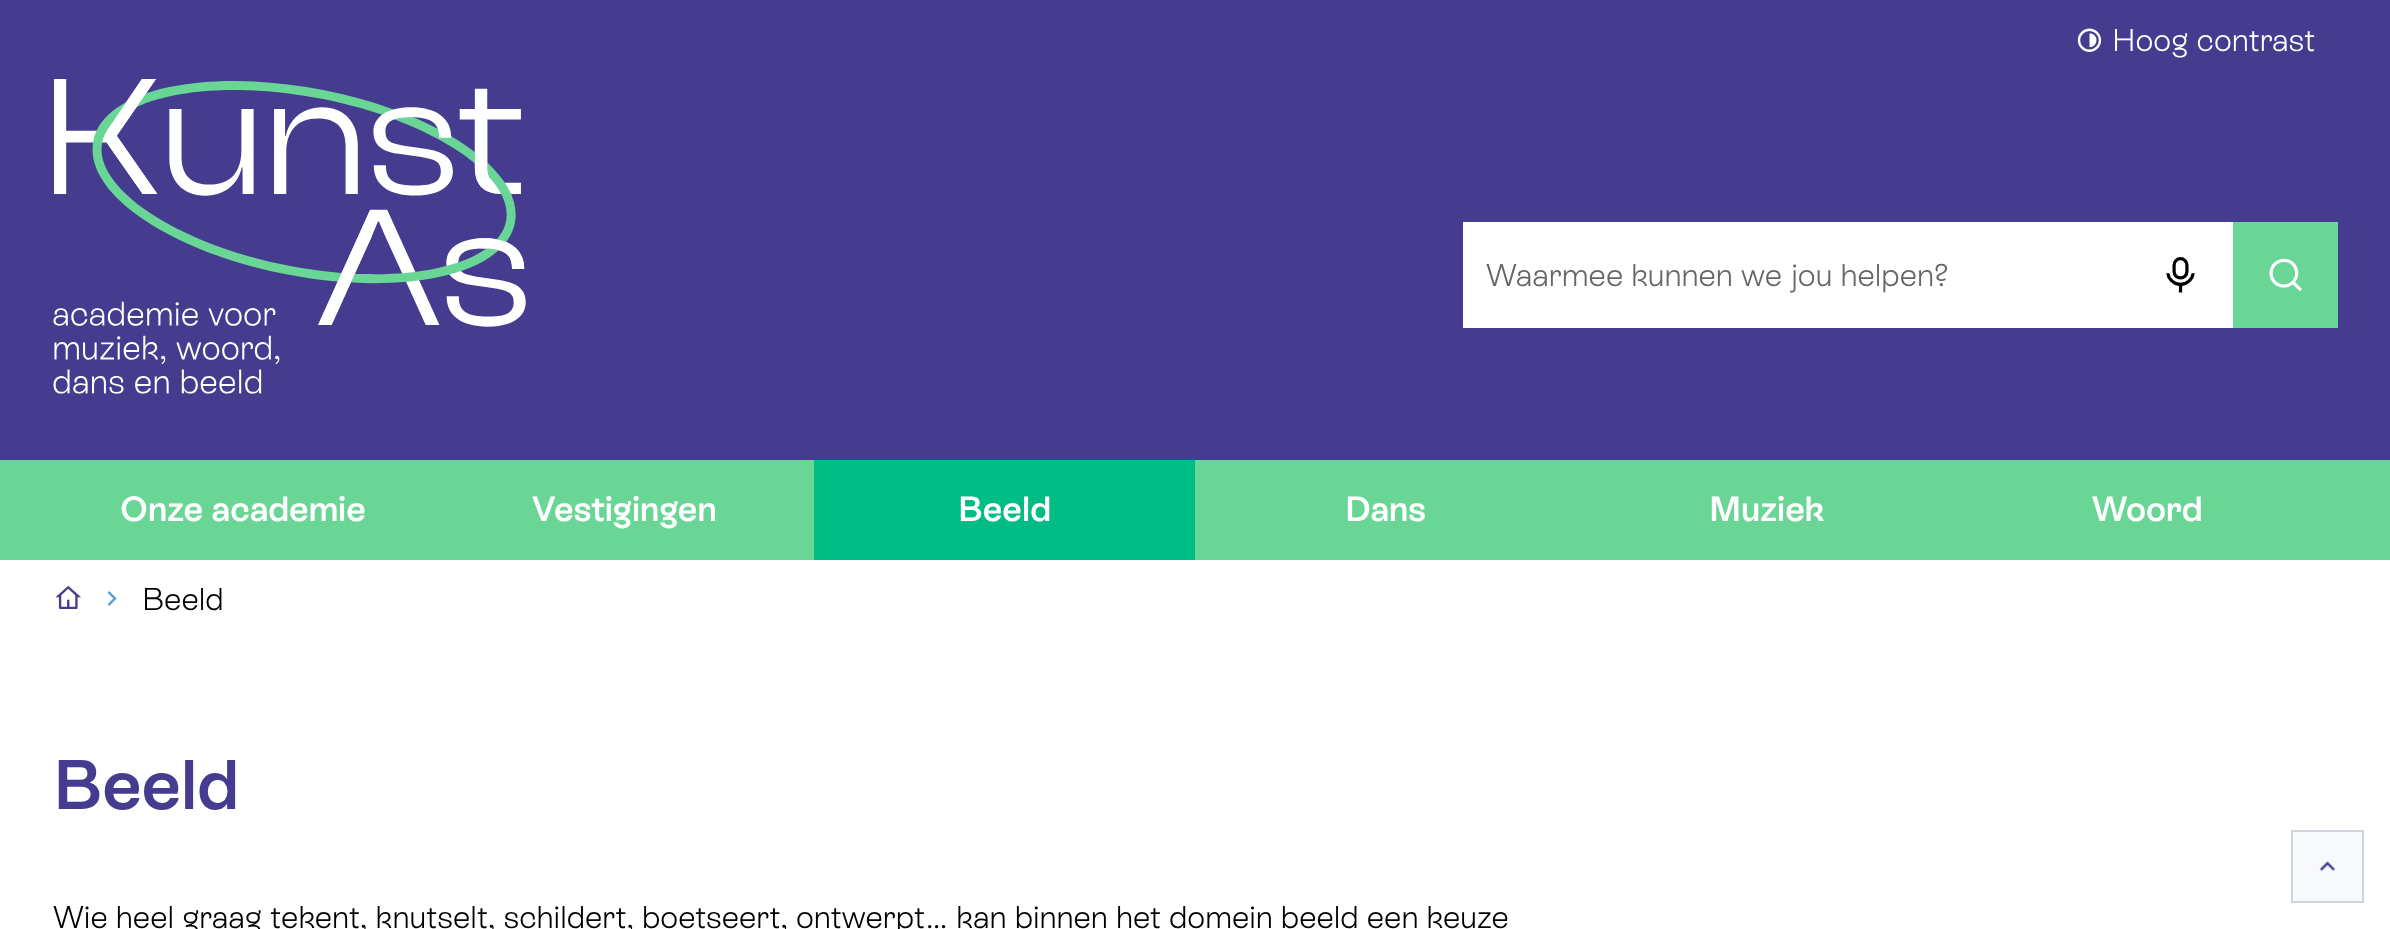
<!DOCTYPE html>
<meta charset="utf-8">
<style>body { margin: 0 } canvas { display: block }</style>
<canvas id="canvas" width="2390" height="929"></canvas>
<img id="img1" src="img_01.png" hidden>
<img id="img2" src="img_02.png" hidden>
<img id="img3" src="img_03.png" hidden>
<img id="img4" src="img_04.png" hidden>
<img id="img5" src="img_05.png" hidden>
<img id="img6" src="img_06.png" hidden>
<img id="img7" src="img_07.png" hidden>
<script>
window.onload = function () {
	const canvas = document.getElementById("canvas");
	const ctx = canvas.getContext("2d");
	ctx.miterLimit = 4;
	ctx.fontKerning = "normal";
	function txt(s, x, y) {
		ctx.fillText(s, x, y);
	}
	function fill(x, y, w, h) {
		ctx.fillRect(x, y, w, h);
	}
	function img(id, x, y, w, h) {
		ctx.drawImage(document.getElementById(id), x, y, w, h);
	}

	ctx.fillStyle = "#FFFFFF";
	fill(0, 0, 2390, 929);
	ctx.fillStyle = "#453B8F";
	fill(0, 0, 2390, 460);
	img("img1", 2077, 28, 25, 24);
	img("img2", 53, 79, 473, 315);
	ctx.fillStyle = "#FFFFFF";
	fill(1463, 222, 665, 104);
	fill(1463, 326, 667, 2);
	fill(2128, 222, 105, 106);
	img("img3", 2166, 257, 29, 36);
	ctx.fillStyle = "#69D696";
	fill(2233, 222, 105, 106);
	img("img4", 2269, 258, 33, 34);
	fill(0, 460, 2390, 100);
	ctx.fillStyle = "#00BC85";
	fill(814, 460, 381, 100);
	img("img5", 55, 586, 26, 23);
	img("img6", 107, 591, 10, 15);
	ctx.fillStyle = "#F8F9FA";
	ctx.beginPath();
	ctx.rect(2292, 831, 71, 71);
	ctx.fill();
	ctx.strokeStyle = "#CED4DA";
	ctx.lineWidth = 2;
	ctx.stroke();
	img("img7", 2319, 861, 17, 11);
	ctx.font = "300 31.5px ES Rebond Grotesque";
	ctx.fillStyle = "#FFFFFF";
	txt("Hoog contrast", 2112, 51);
	ctx.fillStyle = "#666666";
	txt("Waarmee kunnen we jou helpen?", 1486, 286);
	ctx.font = "600 35px ES Rebond Grotesque";
	ctx.fillStyle = "#FFFFFF";
	txt("Onze academie", 120, 521);
	txt("Vestigingen", 532, 521);
	txt("Beeld", 958, 521);
	txt("Dans", 1345, 521);
	txt("Muziek", 1709, 521);
	txt("Woord", 2092, 521);
	ctx.font = "300 31.5px ES Rebond Grotesque";
	ctx.fillStyle = "#000000";
	txt("Beeld", 142, 610);
	ctx.font = "600 70px ES Rebond Grotesque";
	ctx.fillStyle = "#453B8F";
	txt("Beeld", 53, 809);
	ctx.font = "300 31.5px ES Rebond Grotesque";
	ctx.fillStyle = "#000000";
	txt("Wie heel graag tekent, knutselt, schildert, boetseert, ontwerpt… kan binnen het domein beeld een keuze", 53, 928);
};
</script>
